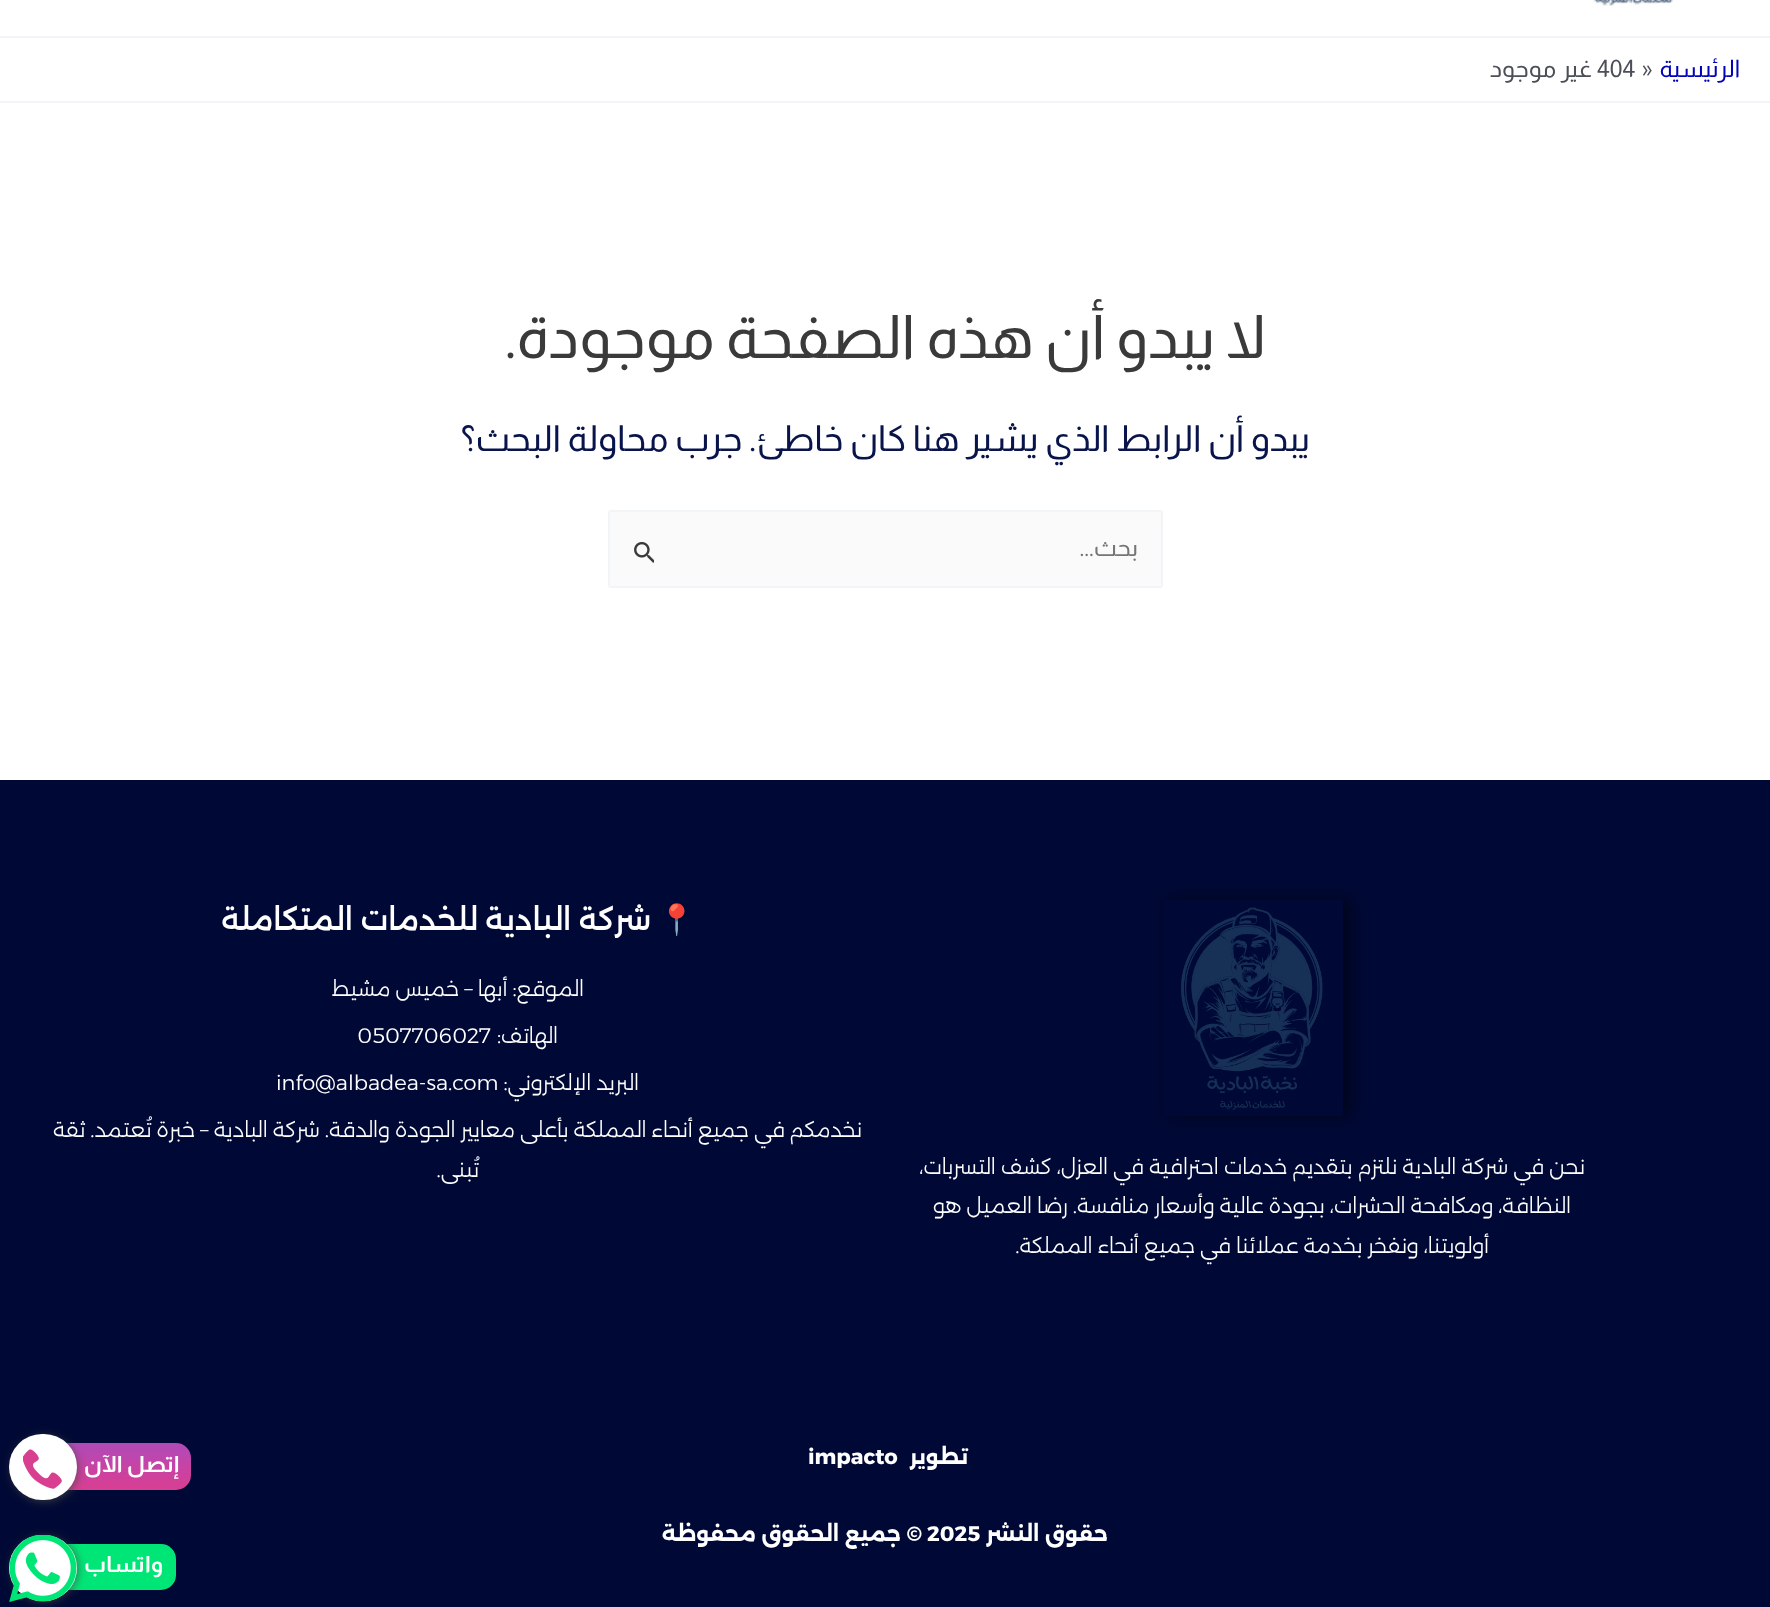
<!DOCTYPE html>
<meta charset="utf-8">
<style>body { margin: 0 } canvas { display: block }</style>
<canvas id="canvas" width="1770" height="1607"></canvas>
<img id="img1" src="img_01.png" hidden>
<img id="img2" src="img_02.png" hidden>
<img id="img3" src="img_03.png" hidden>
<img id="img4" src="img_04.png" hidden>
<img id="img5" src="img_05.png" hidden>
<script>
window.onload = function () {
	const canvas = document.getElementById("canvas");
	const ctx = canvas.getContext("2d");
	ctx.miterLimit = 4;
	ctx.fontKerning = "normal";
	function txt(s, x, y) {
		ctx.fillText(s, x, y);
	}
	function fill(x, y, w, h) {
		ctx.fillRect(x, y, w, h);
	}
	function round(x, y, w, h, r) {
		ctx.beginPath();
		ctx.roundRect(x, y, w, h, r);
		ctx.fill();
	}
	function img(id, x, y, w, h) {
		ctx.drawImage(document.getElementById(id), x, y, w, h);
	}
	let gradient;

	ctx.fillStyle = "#FFFFFF";
	fill(0, 0, 1770, 1607);
	ctx.fillStyle = "#F2F5F7";
	fill(0, 36, 1770, 2);
	img("img1", 1593, 0, 80, 6);
	fill(0, 101, 1770, 2);
	ctx.fillStyle = "#FAFAFA";
	ctx.beginPath();
	ctx.roundRect(609, 511, 553, 76, 2);
	ctx.fill();
	ctx.strokeStyle = "#F2F5F7";
	ctx.lineWidth = 2;
	ctx.stroke();
	img("img2", 634, 542, 20, 21);
	ctx.fillStyle = "#000935";
	fill(0, 780, 1770, 827);
	ctx.save();
	ctx.beginPath();
	ctx.moveTo(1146, 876);
	ctx.lineTo(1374, 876);
	ctx.lineTo(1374, 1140);
	ctx.lineTo(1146, 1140);
	ctx.closePath();
	ctx.moveTo(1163, 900);
	ctx.lineTo(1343, 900);
	ctx.lineTo(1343, 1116);
	ctx.lineTo(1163, 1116);
	ctx.closePath();
	ctx.clip("evenodd");
	ctx.fillStyle = "rgba(0, 0, 0, 0.5)";
	ctx.filter = "blur(7.5px)";
	ctx.beginPath();
	ctx.rect(1170, 900, 180, 216);
	ctx.fill();
	ctx.filter = "none";
	ctx.restore();
	img("img3", 1181, 907, 142, 203);
	gradient = ctx.createLinearGradient(122, 1490, 122, 1443);
	gradient.addColorStop(0, "#D83F91");
	gradient.addColorStop(0.25, "#D0409B");
	gradient.addColorStop(0.5, "#C743A5");
	gradient.addColorStop(0.75, "#BB47AF");
	gradient.addColorStop(1, "#AE4BB8");
	ctx.fillStyle = gradient;
	round(54, 1443, 137, 47, 15);
	ctx.fillStyle = "rgba(68, 68, 68, 0.71)";
	ctx.filter = "blur(4.5px)";
	ctx.beginPath();
	ctx.roundRect(11, 1436, 67, 66, 33);
	ctx.fill();
	ctx.filter = "none";
	ctx.fillStyle = "#FFFFFF";
	round(9, 1434, 68, 66, 33);
	img("img4", 23, 1449, 39, 40);
	ctx.fillStyle = "#00E676";
	round(54, 1544, 122, 46, 15);
	ctx.fillStyle = "rgba(68, 68, 68, 0.71)";
	ctx.filter = "blur(4.5px)";
	ctx.beginPath();
	ctx.roundRect(11, 1536, 67, 66, 33);
	ctx.fill();
	ctx.filter = "none";
	ctx.fillStyle = "#FFFFFF";
	round(9, 1535, 68, 66, 33);
	img("img5", 9, 1535, 68, 67);
	ctx.direction = "rtl";
	ctx.font = "24px Almarai";
	ctx.fillStyle = "#0003BA";
	txt("الرئيسية", 1740, 77);
	ctx.direction = "ltr";
	ctx.fillStyle = "#4B4F58";
	txt("»", 1642, 77);
	txt("404", 1597, 77);
	ctx.direction = "rtl";
	txt("غير موجود", 1592, 77);
	ctx.font = "60px Almarai";
	ctx.fillStyle = "#3A3A3A";
	txt("لا يبدو أن هذه الصفحة موجودة.", 1266, 358);
	ctx.font = "36px Almarai";
	ctx.fillStyle = "#08144A";
	txt("يبدو أن الرابط الذي يشير هنا كان خاطئ. جرب محاولة البحث؟", 1310, 451);
	ctx.font = "24px Almarai";
	ctx.fillStyle = "#757575";
	txt("بحث...", 1138, 556);
	ctx.font = "30px Noto Color Emoji";
	ctx.fillStyle = "#FFFFFF";
	txt("📍", 696, 930);
	ctx.font = "500 30px Alexandria";
	txt("شركة البادية للخدمات المتكاملة", 651, 930);
	ctx.font = "300 21px Alexandria";
	txt("الموقع: أبها – خميس مشيط", 584, 996);
	txt("الهاتف:", 558, 1043);
	ctx.direction = "ltr";
	txt("0507706027", 357, 1043);
	ctx.direction = "rtl";
	txt("البريد الإلكتروني:", 639, 1090);
	ctx.direction = "ltr";
	txt("info@albadea-sa.com", 276, 1090);
	ctx.direction = "rtl";
	txt("نخدمكم في جميع أنحاء المملكة بأعلى معايير الجودة والدقة. شركة البادية – خبرة تُعتمد. ثقة", 862, 1137);
	txt("تُبنى.", 479, 1177);
	txt("نحن في شركة البادية نلتزم بتقديم خدمات احترافية في العزل، كشف التسربات،", 1585, 1174);
	txt("النظافة، ومكافحة الحشرات، بجودة عالية وأسعار منافسة. رضا العميل هو", 1571, 1213);
	txt("أولويتنا، ونفخر بخدمة عملائنا في جميع أنحاء المملكة.", 1489, 1253);
	ctx.font = "bold 21px Alexandria";
	txt("تطوير", 968, 1464);
	ctx.direction = "ltr";
	txt("impacto", 808, 1464);
	ctx.direction = "rtl";
	txt("حقوق النشر", 1108, 1541);
	ctx.direction = "ltr";
	txt("2025", 927, 1541);
	ctx.direction = "rtl";
	txt("© جميع الحقوق محفوظة", 922, 1541);
	ctx.font = "bold 22.5px Almarai";
	txt("إتصل الآن", 179, 1472);
	txt("واتساب", 163, 1572);
};
</script>
